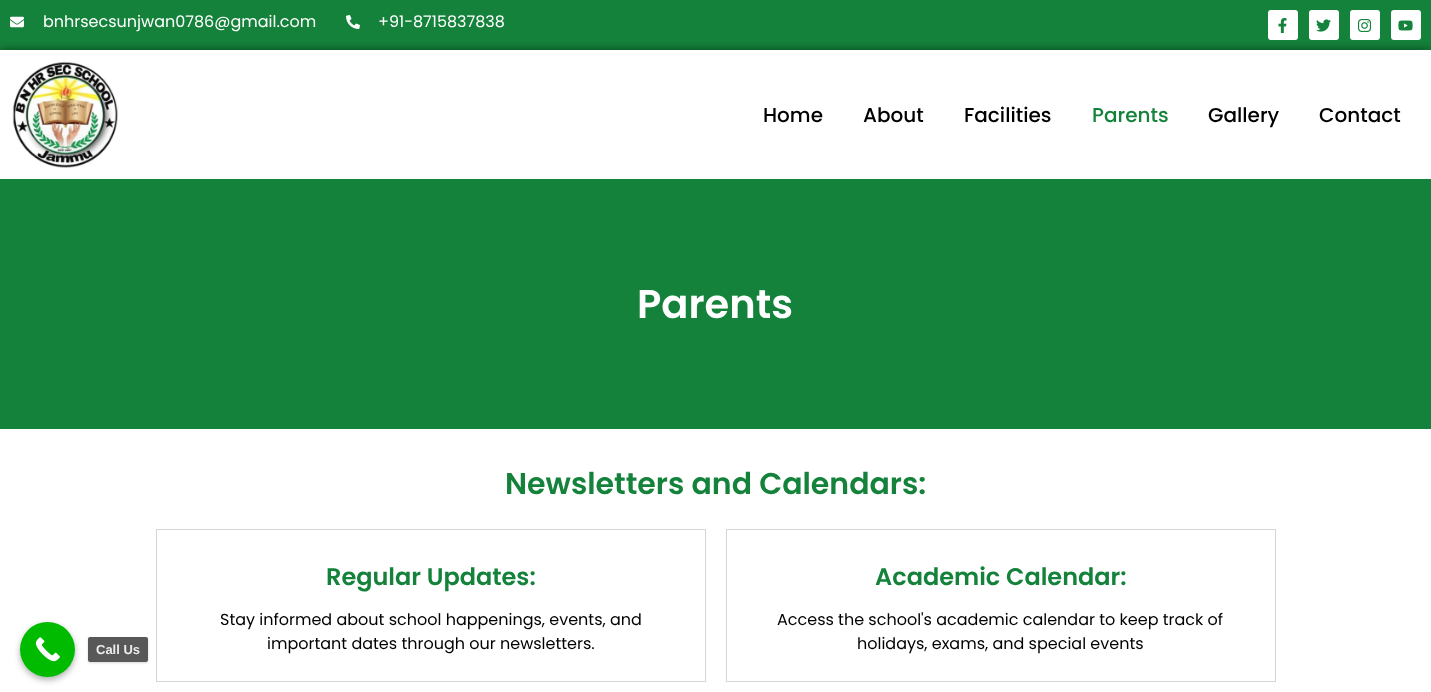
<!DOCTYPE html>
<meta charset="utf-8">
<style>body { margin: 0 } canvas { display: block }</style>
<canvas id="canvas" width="1431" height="692"></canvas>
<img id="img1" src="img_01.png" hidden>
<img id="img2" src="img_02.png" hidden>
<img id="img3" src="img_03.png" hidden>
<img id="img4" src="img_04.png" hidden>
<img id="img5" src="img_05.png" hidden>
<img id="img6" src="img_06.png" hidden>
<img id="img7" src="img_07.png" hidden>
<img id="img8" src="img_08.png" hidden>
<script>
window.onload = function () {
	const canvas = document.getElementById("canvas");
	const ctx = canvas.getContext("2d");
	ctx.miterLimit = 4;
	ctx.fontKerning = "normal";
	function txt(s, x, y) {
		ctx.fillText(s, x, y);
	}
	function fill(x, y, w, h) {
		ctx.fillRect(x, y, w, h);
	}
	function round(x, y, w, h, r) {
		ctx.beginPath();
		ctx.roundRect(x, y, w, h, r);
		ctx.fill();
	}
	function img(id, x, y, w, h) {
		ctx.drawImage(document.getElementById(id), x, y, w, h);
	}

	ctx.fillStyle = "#FFFFFF";
	fill(0, 0, 1431, 692);
	ctx.fillStyle = "#14823A";
	fill(0, 0, 1431, 50);
	img("img1", 10, 16, 14, 12);
	img("img2", 346, 15, 14, 14);
	ctx.fillStyle = "#FFFFFF";
	round(1268, 10, 30, 30, 3);
	img("img3", 1278, 18, 9, 15);
	round(1309, 10, 30, 30, 3);
	img("img4", 1316, 19, 15, 13);
	round(1350, 10, 30, 30, 3);
	img("img5", 1358, 19, 14, 13);
	round(1391, 10, 30, 30, 3);
	img("img6", 1398, 20, 15, 11);
	ctx.save();
	ctx.beginPath();
	ctx.rect(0, 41, 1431, 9);
	ctx.clip();
	ctx.fillStyle = "rgba(0, 0, 0, 0.5)";
	ctx.filter = "blur(5px)";
	ctx.beginPath();
	ctx.rect(0, 50, 1431, 129);
	ctx.fill();
	ctx.filter = "none";
	ctx.restore();
	img("img7", 12, 61, 107, 107);
	ctx.fillStyle = "rgba(0, 0, 0, 0.3)";
	ctx.filter = "blur(3px)";
	ctx.beginPath();
	ctx.roundRect(20, 625, 55, 55, 27.5);
	ctx.fill();
	ctx.filter = "none";
	ctx.fillStyle = "#00BB00";
	ctx.beginPath();
	ctx.arc(47.5, 649.5, 27.5, 0, Math.PI * 2);
	ctx.fill();
	img("img8", 35, 637, 25, 25);
	ctx.save();
	ctx.beginPath();
	ctx.moveTo(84, 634);
	ctx.lineTo(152, 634);
	ctx.lineTo(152, 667);
	ctx.lineTo(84, 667);
	ctx.closePath();
	ctx.moveTo(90, 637);
	ctx.lineTo(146, 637);
	ctx.bezierCurveTo(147, 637, 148, 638, 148, 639);
	ctx.lineTo(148, 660);
	ctx.bezierCurveTo(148, 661, 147, 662, 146, 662);
	ctx.lineTo(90, 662);
	ctx.bezierCurveTo(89, 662, 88, 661, 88, 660);
	ctx.lineTo(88, 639);
	ctx.bezierCurveTo(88, 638, 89, 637, 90, 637);
	ctx.closePath();
	ctx.clip("evenodd");
	ctx.fillStyle = "rgba(0, 0, 0, 0.15)";
	ctx.filter = "blur(1px)";
	ctx.beginPath();
	ctx.roundRect(88, 638, 60, 25, 2);
	ctx.fill();
	ctx.filter = "none";
	ctx.restore();
	ctx.fillStyle = "rgba(70, 70, 70, 0.9)";
	round(88, 637, 60, 25, 2);
	ctx.fillStyle = "#14823A";
	fill(0, 179, 1431, 250);
	ctx.strokeStyle = "#D6D6D6";
	ctx.strokeRect(156.5, 529.5, 549, 152);
	ctx.strokeRect(726.5, 529.5, 549, 152);
	ctx.font = "16px Poppins";
	ctx.fillStyle = "#FFFFFF";
	txt("bnhrsecsunjwan0786@gmail.com", 43, 27);
	txt("+91-8715837838", 378, 27);
	ctx.font = "500 20px Poppins";
	ctx.fillStyle = "#000000";
	txt("Home", 763, 122);
	txt("About", 863, 122);
	txt("Facilities", 964, 122);
	ctx.fillStyle = "#14823A";
	txt("Parents", 1092, 122);
	ctx.fillStyle = "#000000";
	txt("Gallery", 1208, 122);
	txt("Contact", 1319, 122);
	ctx.font = "bold 13px Liberation Sans";
	ctx.fillStyle = "#ECECEC";
	txt("Call Us", 96, 654);
	ctx.font = "600 40px Poppins";
	ctx.fillStyle = "#FFFFFF";
	txt("Parents", 637, 318);
	ctx.font = "600 30px Poppins";
	ctx.fillStyle = "#14823A";
	txt("Newsletters and Calendars:", 505, 494);
	ctx.font = "600 24px Poppins";
	txt("Regular Updates:", 326, 585);
	ctx.font = "16px Poppins";
	ctx.fillStyle = "#000000";
	txt("Stay informed about school happenings, events, and", 220, 625);
	txt("important dates through our newsletters.", 267, 649);
	ctx.font = "600 24px Poppins";
	ctx.fillStyle = "#14823A";
	txt("Academic Calendar:", 875, 585);
	ctx.font = "16px Poppins";
	ctx.fillStyle = "#000000";
	txt("Access the school's academic calendar to keep track of", 777, 625);
	txt("holidays, exams, and special events", 857, 649);
};
</script>
